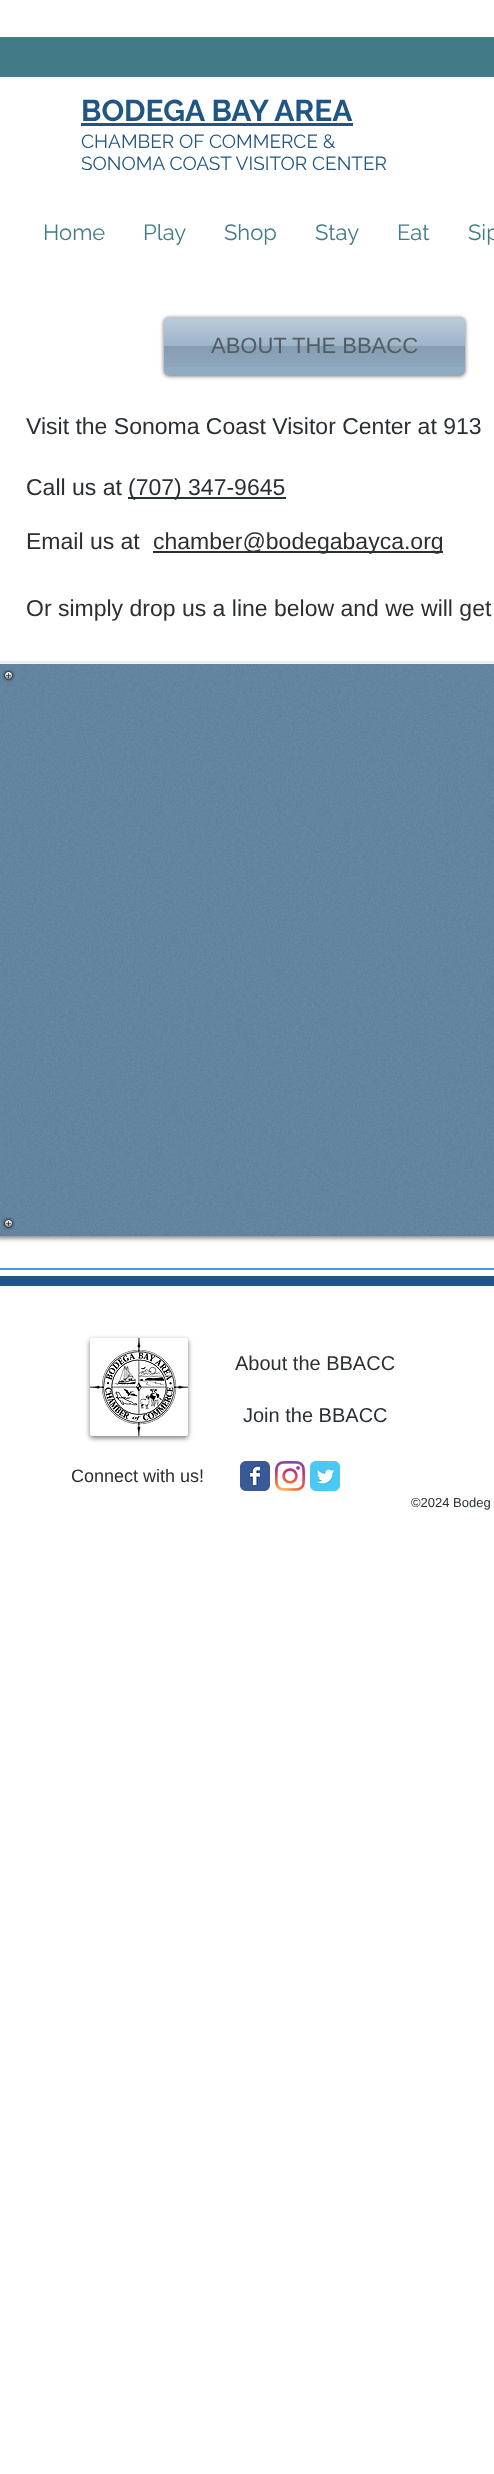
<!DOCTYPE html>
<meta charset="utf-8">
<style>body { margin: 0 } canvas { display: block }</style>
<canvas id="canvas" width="494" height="2474"></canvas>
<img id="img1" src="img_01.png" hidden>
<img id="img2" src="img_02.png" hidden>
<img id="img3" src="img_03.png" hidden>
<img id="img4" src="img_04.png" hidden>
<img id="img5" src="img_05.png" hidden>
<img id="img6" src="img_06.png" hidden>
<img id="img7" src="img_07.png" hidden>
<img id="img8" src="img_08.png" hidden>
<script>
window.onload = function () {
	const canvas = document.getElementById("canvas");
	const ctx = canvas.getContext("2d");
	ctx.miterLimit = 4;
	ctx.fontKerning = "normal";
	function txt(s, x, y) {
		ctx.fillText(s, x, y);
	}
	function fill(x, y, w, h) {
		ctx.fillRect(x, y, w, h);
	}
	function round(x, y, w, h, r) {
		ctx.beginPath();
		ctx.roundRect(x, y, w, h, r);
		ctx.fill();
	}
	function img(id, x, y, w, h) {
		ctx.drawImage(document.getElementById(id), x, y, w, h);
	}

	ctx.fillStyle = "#FFFFFF";
	fill(0, 0, 494, 2474);
	ctx.fillStyle = "#427B87";
	fill(0, 37, 494, 40);
	ctx.fillStyle = "#205685";
	fill(81, 123, 272, 3);
	ctx.fillStyle = "rgba(0, 0, 0, 0.6)";
	ctx.filter = "blur(2px)";
	ctx.beginPath();
	ctx.roundRect(164, 318, 301, 58, 5);
	ctx.fill();
	ctx.filter = "none";
	ctx.fillStyle = "#91ABC2";
	round(164, 317, 301, 58, 5);
	img("img1", 164, 317, 301, 50);
	ctx.fillStyle = "#292F33";
	fill(128, 497, 158, 2);
	fill(153, 551, 290, 2);
	ctx.fillStyle = "rgba(0, 0, 0, 0.53)";
	ctx.filter = "blur(2.5px)";
	ctx.beginPath();
	ctx.roundRect(-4, 665, 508, 573, 2);
	ctx.fill();
	ctx.filter = "none";
	ctx.fillStyle = "#6587A4";
	fill(0, 663, 494, 573);
	img("img2", 0, 663, 494, 573);
	ctx.fillStyle = "rgba(255, 255, 255, 0.92)";
	ctx.beginPath();
	ctx.moveTo(-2, 664);
	ctx.lineTo(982, 664);
	ctx.bezierCurveTo(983, 664, 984, 665, 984, 666);
	ctx.lineTo(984, 665);
	ctx.bezierCurveTo(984, 664, 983, 663, 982, 663);
	ctx.lineTo(-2, 663);
	ctx.bezierCurveTo(-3, 663, -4, 664, -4, 665);
	ctx.lineTo(-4, 666);
	ctx.bezierCurveTo(-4, 665, -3, 664, -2, 664);
	ctx.closePath();
	ctx.fill();
	img("img3", 2, 669, 13, 13);
	img("img4", 2, 1217, 13, 13);
	ctx.fillStyle = "#3D9BE9";
	fill(0, 1268, 494, 2);
	ctx.fillStyle = "#205685";
	fill(0, 1276, 494, 10);
	ctx.save();
	ctx.beginPath();
	ctx.moveTo(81, 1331);
	ctx.lineTo(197, 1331);
	ctx.lineTo(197, 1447);
	ctx.lineTo(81, 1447);
	ctx.closePath();
	ctx.moveTo(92, 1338);
	ctx.lineTo(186, 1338);
	ctx.bezierCurveTo(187, 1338, 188, 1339, 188, 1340);
	ctx.lineTo(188, 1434);
	ctx.bezierCurveTo(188, 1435, 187, 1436, 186, 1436);
	ctx.lineTo(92, 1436);
	ctx.bezierCurveTo(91, 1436, 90, 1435, 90, 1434);
	ctx.lineTo(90, 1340);
	ctx.bezierCurveTo(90, 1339, 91, 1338, 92, 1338);
	ctx.closePath();
	ctx.clip("evenodd");
	ctx.fillStyle = "rgba(0, 0, 0, 0.53)";
	ctx.filter = "blur(2.5px)";
	ctx.beginPath();
	ctx.roundRect(90, 1340, 98, 98, 2);
	ctx.fill();
	ctx.filter = "none";
	ctx.restore();
	img("img5", 90, 1338, 98, 98);
	img("img6", 240, 1461, 30, 30);
	img("img7", 275, 1461, 30, 30);
	img("img8", 310, 1461, 30, 30);
	ctx.font = "bold 30px Raleway";
	txt("BODEGA BAY AREA", 81, 121);
	ctx.font = "19px Raleway";
	txt("CHAMBER OF COMMERCE &", 81, 148);
	txt("SONOMA COAST VISITOR CENTER", 81, 170);
	ctx.font = "22px Raleway";
	ctx.fillStyle = "#427B87";
	txt("Home", 43, 240);
	txt("Play", 143, 240);
	txt("Shop", 224, 240);
	txt("Stay", 315, 240);
	txt("Eat", 397, 240);
	txt("Sip", 468, 240);
	ctx.font = "22px Liberation Sans";
	ctx.fillStyle = "#515E65";
	txt("ABOUT THE BBACC", 211, 353);
	ctx.font = "23px Liberation Sans";
	ctx.fillStyle = "#292F33";
	txt("Visit the Sonoma Coast Visitor Center at 913", 26, 434);
	txt("Call us at", 26, 495);
	txt("(707) 347-9645", 128, 495);
	txt("Email us at", 26, 549);
	txt("chamber@bodegabayca.org", 153, 549);
	txt("Or simply drop us a line below and we will get", 26, 616);
	ctx.font = "20px Liberation Sans";
	txt("About the BBACC", 235, 1370);
	txt("Join the BBACC", 243, 1422);
	ctx.font = "18px Liberation Sans";
	txt("Connect with us!", 71, 1482);
	ctx.font = "13px Liberation Sans";
	txt("©2024 Bodeg", 411, 1507);
};
</script>
